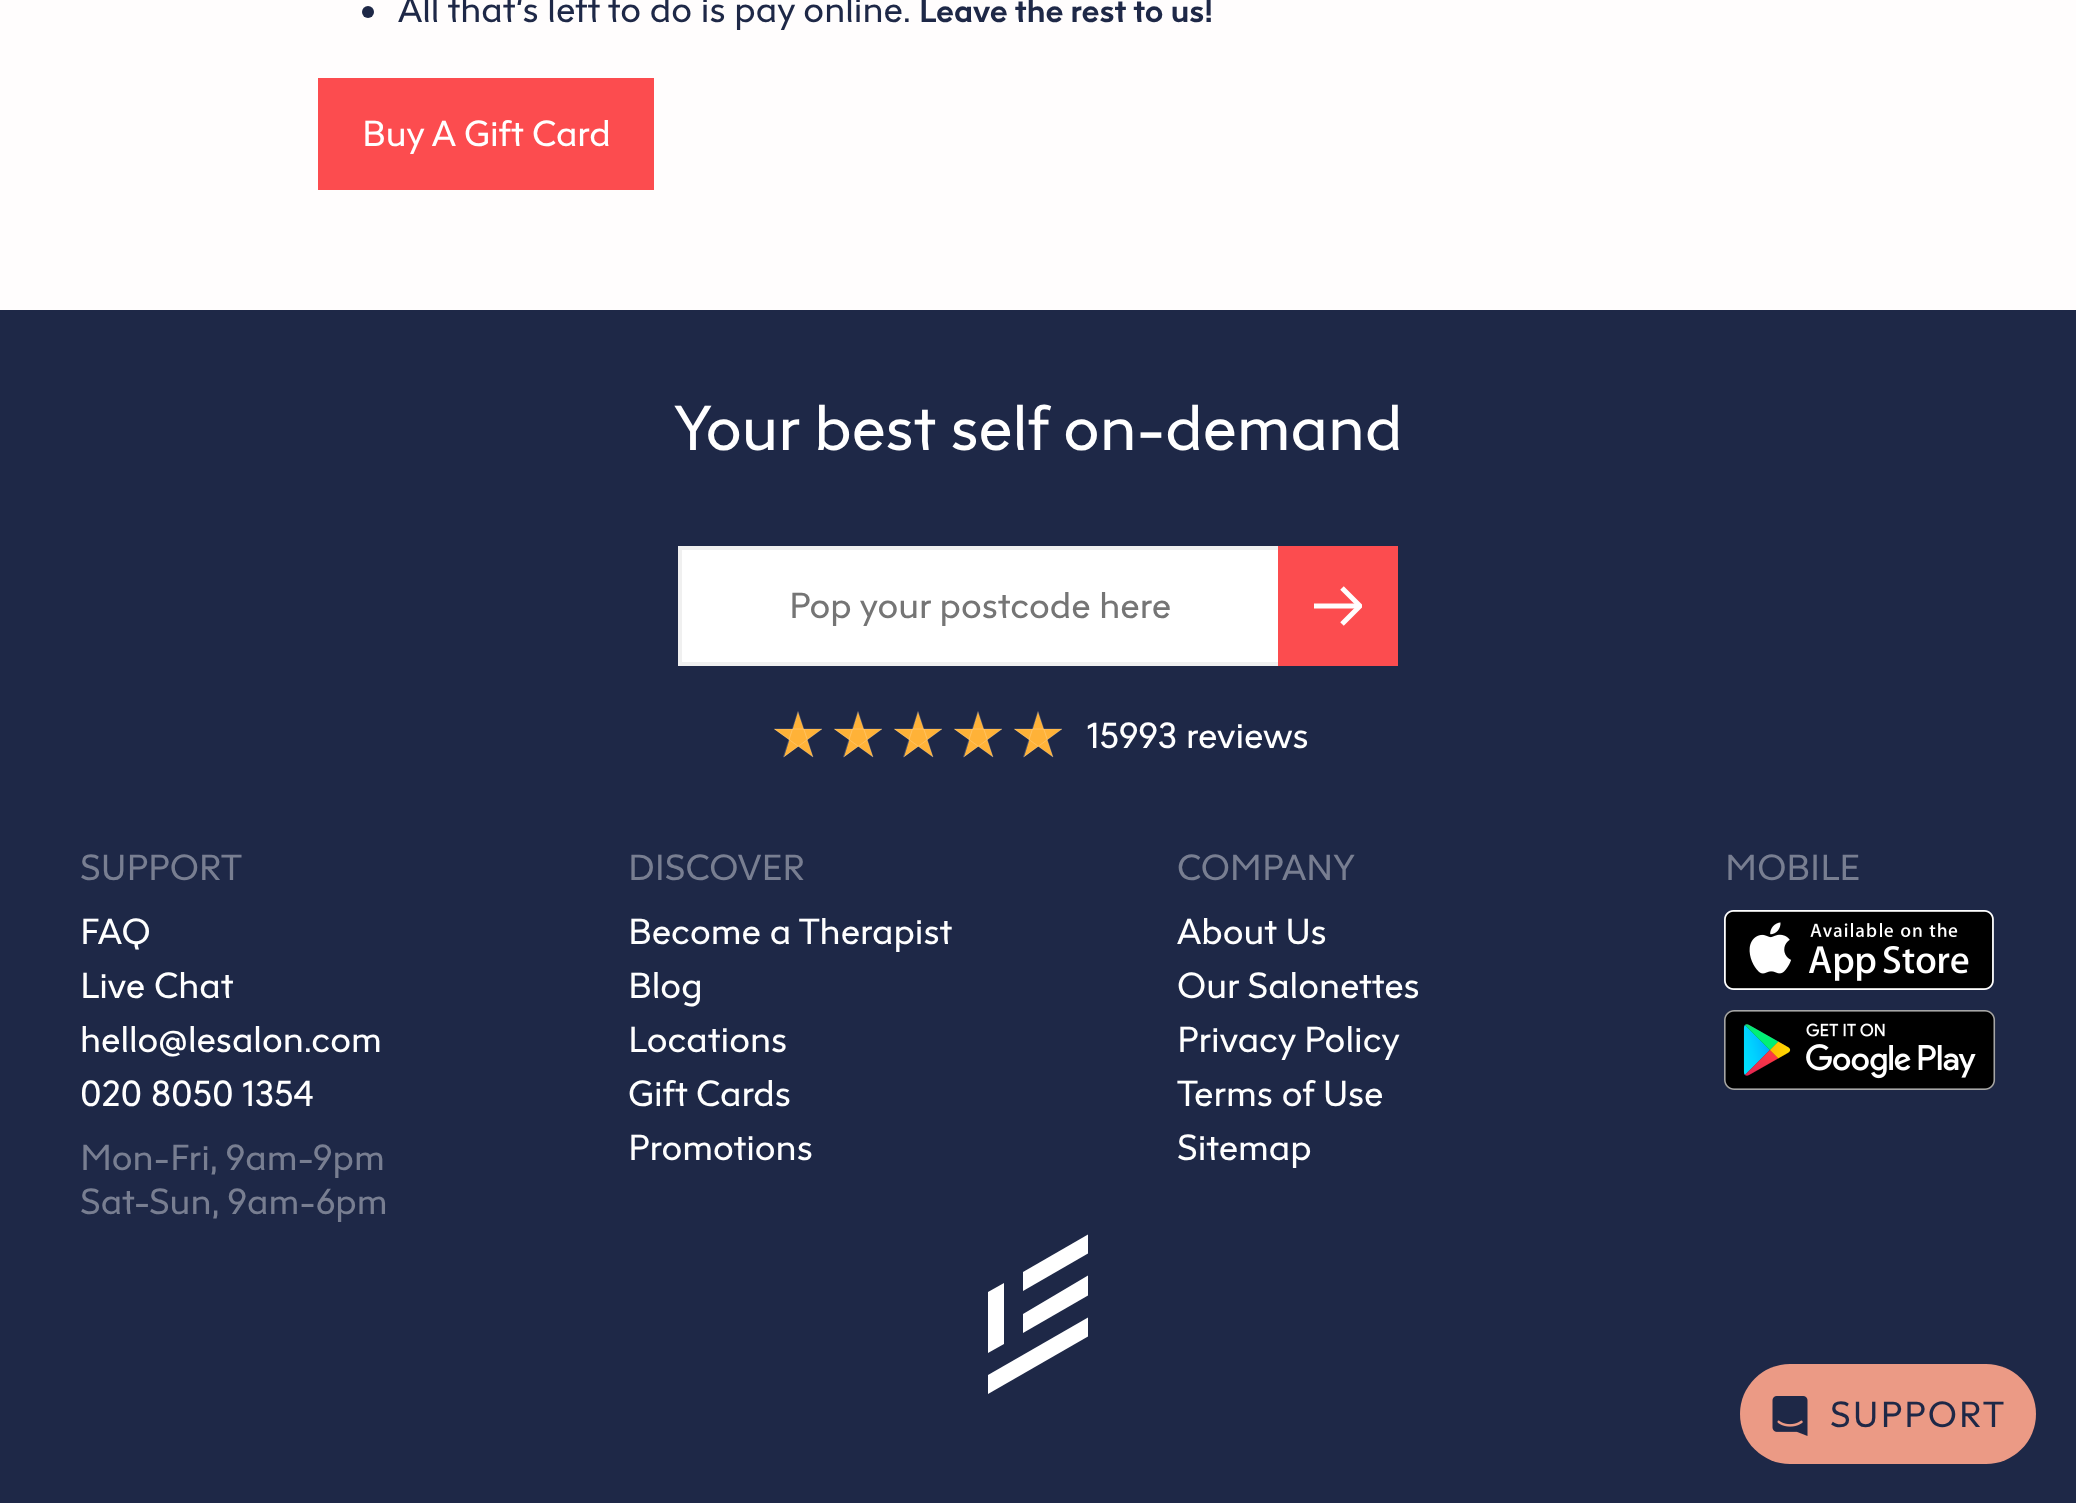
<!DOCTYPE html>
<meta charset="utf-8">
<style>body { margin: 0 } canvas { display: block }</style>
<canvas id="canvas" width="2076" height="1503"></canvas>
<img id="img1" src="img_01.png" hidden>
<img id="img2" src="img_02.png" hidden>
<img id="img3" src="img_03.png" hidden>
<script>
window.onload = function () {
	const canvas = document.getElementById("canvas");
	const ctx = canvas.getContext("2d");
	ctx.miterLimit = 4;
	ctx.fontKerning = "normal";
	function txt(s, x, y) {
		ctx.fillText(s, x, y);
	}
	function fill(x, y, w, h) {
		ctx.fillRect(x, y, w, h);
	}
	function round(x, y, w, h, r) {
		ctx.beginPath();
		ctx.roundRect(x, y, w, h, r);
		ctx.fill();
	}
	function img(id, x, y, w, h) {
		ctx.drawImage(document.getElementById(id), x, y, w, h);
	}

	ctx.fillStyle = "#FFFDFD";
	fill(0, 0, 2076, 1503);
	ctx.fillStyle = "#1E2847";
	ctx.beginPath();
	ctx.arc(368, 12, 6, 0, Math.PI * 2);
	ctx.fill();
	ctx.fillStyle = "#FC4C4F";
	fill(318, 78, 336, 112);
	ctx.fillStyle = "#1E2847";
	fill(0, 310, 2076, 1193);
	ctx.fillStyle = "#FFFFFF";
	fill(682, 550, 596, 112);
	ctx.fillStyle = "#F0F0F0";
	fill(678, 546, 600, 4);
	fill(678, 662, 600, 4);
	fill(678, 546, 4, 120);
	ctx.fillStyle = "#FC4C4F";
	fill(1278, 546, 120, 120);
	ctx.beginPath();
	ctx.moveTo(1314, 606);
	ctx.lineTo(1359.5, 606);
	ctx.strokeStyle = "#FFFDFD";
	ctx.lineWidth = 5;
	ctx.stroke();
	ctx.save();
	ctx.beginPath();
	ctx.rect(1314, 586, 48, 40);
	ctx.clip();
	ctx.beginPath();
	ctx.moveTo(1342, 588);
	ctx.lineTo(1360, 606);
	ctx.lineTo(1342, 624);
	ctx.stroke();
	ctx.restore();
	ctx.fillStyle = "#FFB238";
	ctx.beginPath();
	ctx.moveTo(784, 757);
	ctx.lineTo(798, 712);
	ctx.lineTo(813, 757);
	ctx.lineTo(774, 729);
	ctx.lineTo(822, 729);
	ctx.closePath();
	ctx.fill();
	ctx.beginPath();
	ctx.moveTo(783.5, 757);
	ctx.lineTo(798, 711.5);
	ctx.lineTo(813, 757);
	ctx.lineTo(774.5, 729);
	ctx.lineTo(822, 729);
	ctx.closePath();
	ctx.strokeStyle = "#FFFFFF";
	ctx.lineWidth = 0.2;
	ctx.stroke();
	ctx.beginPath();
	ctx.moveTo(844, 757);
	ctx.lineTo(858, 712);
	ctx.lineTo(873, 757);
	ctx.lineTo(834, 729);
	ctx.lineTo(882, 729);
	ctx.closePath();
	ctx.fill();
	ctx.beginPath();
	ctx.moveTo(843.5, 757);
	ctx.lineTo(858, 711.5);
	ctx.lineTo(873, 757);
	ctx.lineTo(834.5, 729);
	ctx.lineTo(882, 729);
	ctx.closePath();
	ctx.stroke();
	ctx.beginPath();
	ctx.moveTo(904, 757);
	ctx.lineTo(918, 712);
	ctx.lineTo(933, 757);
	ctx.lineTo(894, 729);
	ctx.lineTo(942, 729);
	ctx.closePath();
	ctx.fill();
	ctx.beginPath();
	ctx.moveTo(903.5, 757);
	ctx.lineTo(918, 711.5);
	ctx.lineTo(933, 757);
	ctx.lineTo(894.5, 729);
	ctx.lineTo(942, 729);
	ctx.closePath();
	ctx.stroke();
	ctx.beginPath();
	ctx.moveTo(964, 757);
	ctx.lineTo(978, 712);
	ctx.lineTo(993, 757);
	ctx.lineTo(954, 729);
	ctx.lineTo(1002, 729);
	ctx.closePath();
	ctx.fill();
	ctx.beginPath();
	ctx.moveTo(963.5, 757);
	ctx.lineTo(978, 711.5);
	ctx.lineTo(993, 757);
	ctx.lineTo(954.5, 729);
	ctx.lineTo(1002, 729);
	ctx.closePath();
	ctx.stroke();
	ctx.beginPath();
	ctx.moveTo(1024, 757);
	ctx.lineTo(1038, 712);
	ctx.lineTo(1053, 757);
	ctx.lineTo(1014, 729);
	ctx.lineTo(1062, 729);
	ctx.closePath();
	ctx.fill();
	ctx.beginPath();
	ctx.moveTo(1023.5, 757);
	ctx.lineTo(1038, 711.5);
	ctx.lineTo(1053, 757);
	ctx.lineTo(1014.5, 729);
	ctx.lineTo(1062, 729);
	ctx.closePath();
	ctx.stroke();
	img("img1", 1724, 910, 270, 80);
	img("img2", 1724, 1010, 272, 80);
	ctx.save();
	ctx.beginPath();
	ctx.rect(988, 1234, 100, 160);
	ctx.clip();
	ctx.fillStyle = "#FFFFFF";
	ctx.beginPath();
	ctx.moveTo(1089, 1234);
	ctx.lineTo(1023, 1272);
	ctx.lineTo(1023, 1291);
	ctx.lineTo(1089, 1253);
	ctx.closePath();
	ctx.fill();
	ctx.beginPath();
	ctx.moveTo(988, 1375);
	ctx.lineTo(988, 1394);
	ctx.lineTo(1089, 1336);
	ctx.lineTo(1089, 1317);
	ctx.closePath();
	ctx.fill();
	ctx.restore();
	ctx.fillStyle = "#FFFFFF";
	ctx.beginPath();
	ctx.moveTo(988, 1292);
	ctx.lineTo(988, 1353);
	ctx.lineTo(1004, 1344);
	ctx.lineTo(1004, 1283);
	ctx.closePath();
	ctx.fill();
	ctx.save();
	ctx.beginPath();
	ctx.rect(988, 1234, 100, 160);
	ctx.clip();
	ctx.beginPath();
	ctx.moveTo(1089, 1275);
	ctx.lineTo(1023, 1314);
	ctx.lineTo(1023, 1333);
	ctx.lineTo(1089, 1295);
	ctx.closePath();
	ctx.fill();
	ctx.restore();
	ctx.fillStyle = "#EB9A85";
	round(1740, 1364, 296, 100, 50);
	img("img3", 1772, 1396, 36, 40);
	ctx.font = "36px 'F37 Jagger'";
	ctx.fillStyle = "#1E2847";
	txt("All that’s left to do is pay online.", 398, 22);
	ctx.font = "bold 32px 'F37 Jagger'";
	txt("Leave the rest to us!", 919, 22);
	ctx.font = "36px 'F37 Jagger'";
	ctx.fillStyle = "#FFFFFF";
	txt("Buy A Gift Card", 362, 146);
	ctx.font = "63px 'F37 Jagger'";
	txt("Your best self on-demand", 674, 450);
	ctx.font = "36px 'F37 Jagger'";
	ctx.fillStyle = "#757575";
	txt("Pop your postcode here", 789, 618);
	ctx.fillStyle = "#FFFFFF";
	txt("15993 reviews", 1087, 748);
	ctx.fillStyle = "#787E91";
	txt("SUPPORT", 80, 880);
	ctx.fillStyle = "#FFFFFF";
	txt("FAQ", 80, 944);
	txt("Live Chat", 80, 998);
	txt("hello@lesalon.com", 80, 1052);
	txt("020 8050 1354", 80, 1106);
	ctx.fillStyle = "#787E91";
	txt("Mon-Fri, 9am-9pm", 80, 1170);
	txt("Sat-Sun, 9am-6pm", 80, 1214);
	txt("DISCOVER", 628, 880);
	ctx.fillStyle = "#FFFFFF";
	txt("Become a Therapist", 628, 944);
	txt("Blog", 628, 998);
	txt("Locations", 628, 1052);
	txt("Gift Cards", 628, 1106);
	txt("Promotions", 628, 1160);
	ctx.fillStyle = "#787E91";
	txt("COMPANY", 1177, 880);
	ctx.fillStyle = "#FFFFFF";
	txt("About Us", 1177, 944);
	txt("Our Salonettes", 1177, 998);
	txt("Privacy Policy", 1177, 1052);
	txt("Terms of Use", 1177, 1106);
	txt("Sitemap", 1177, 1160);
	ctx.fillStyle = "#787E91";
	txt("MOBILE", 1725, 880);
	ctx.letterSpacing = "2px";
	ctx.fillStyle = "#1E2847";
	txt("SUPPORT", 1830, 1427);
};
</script>
